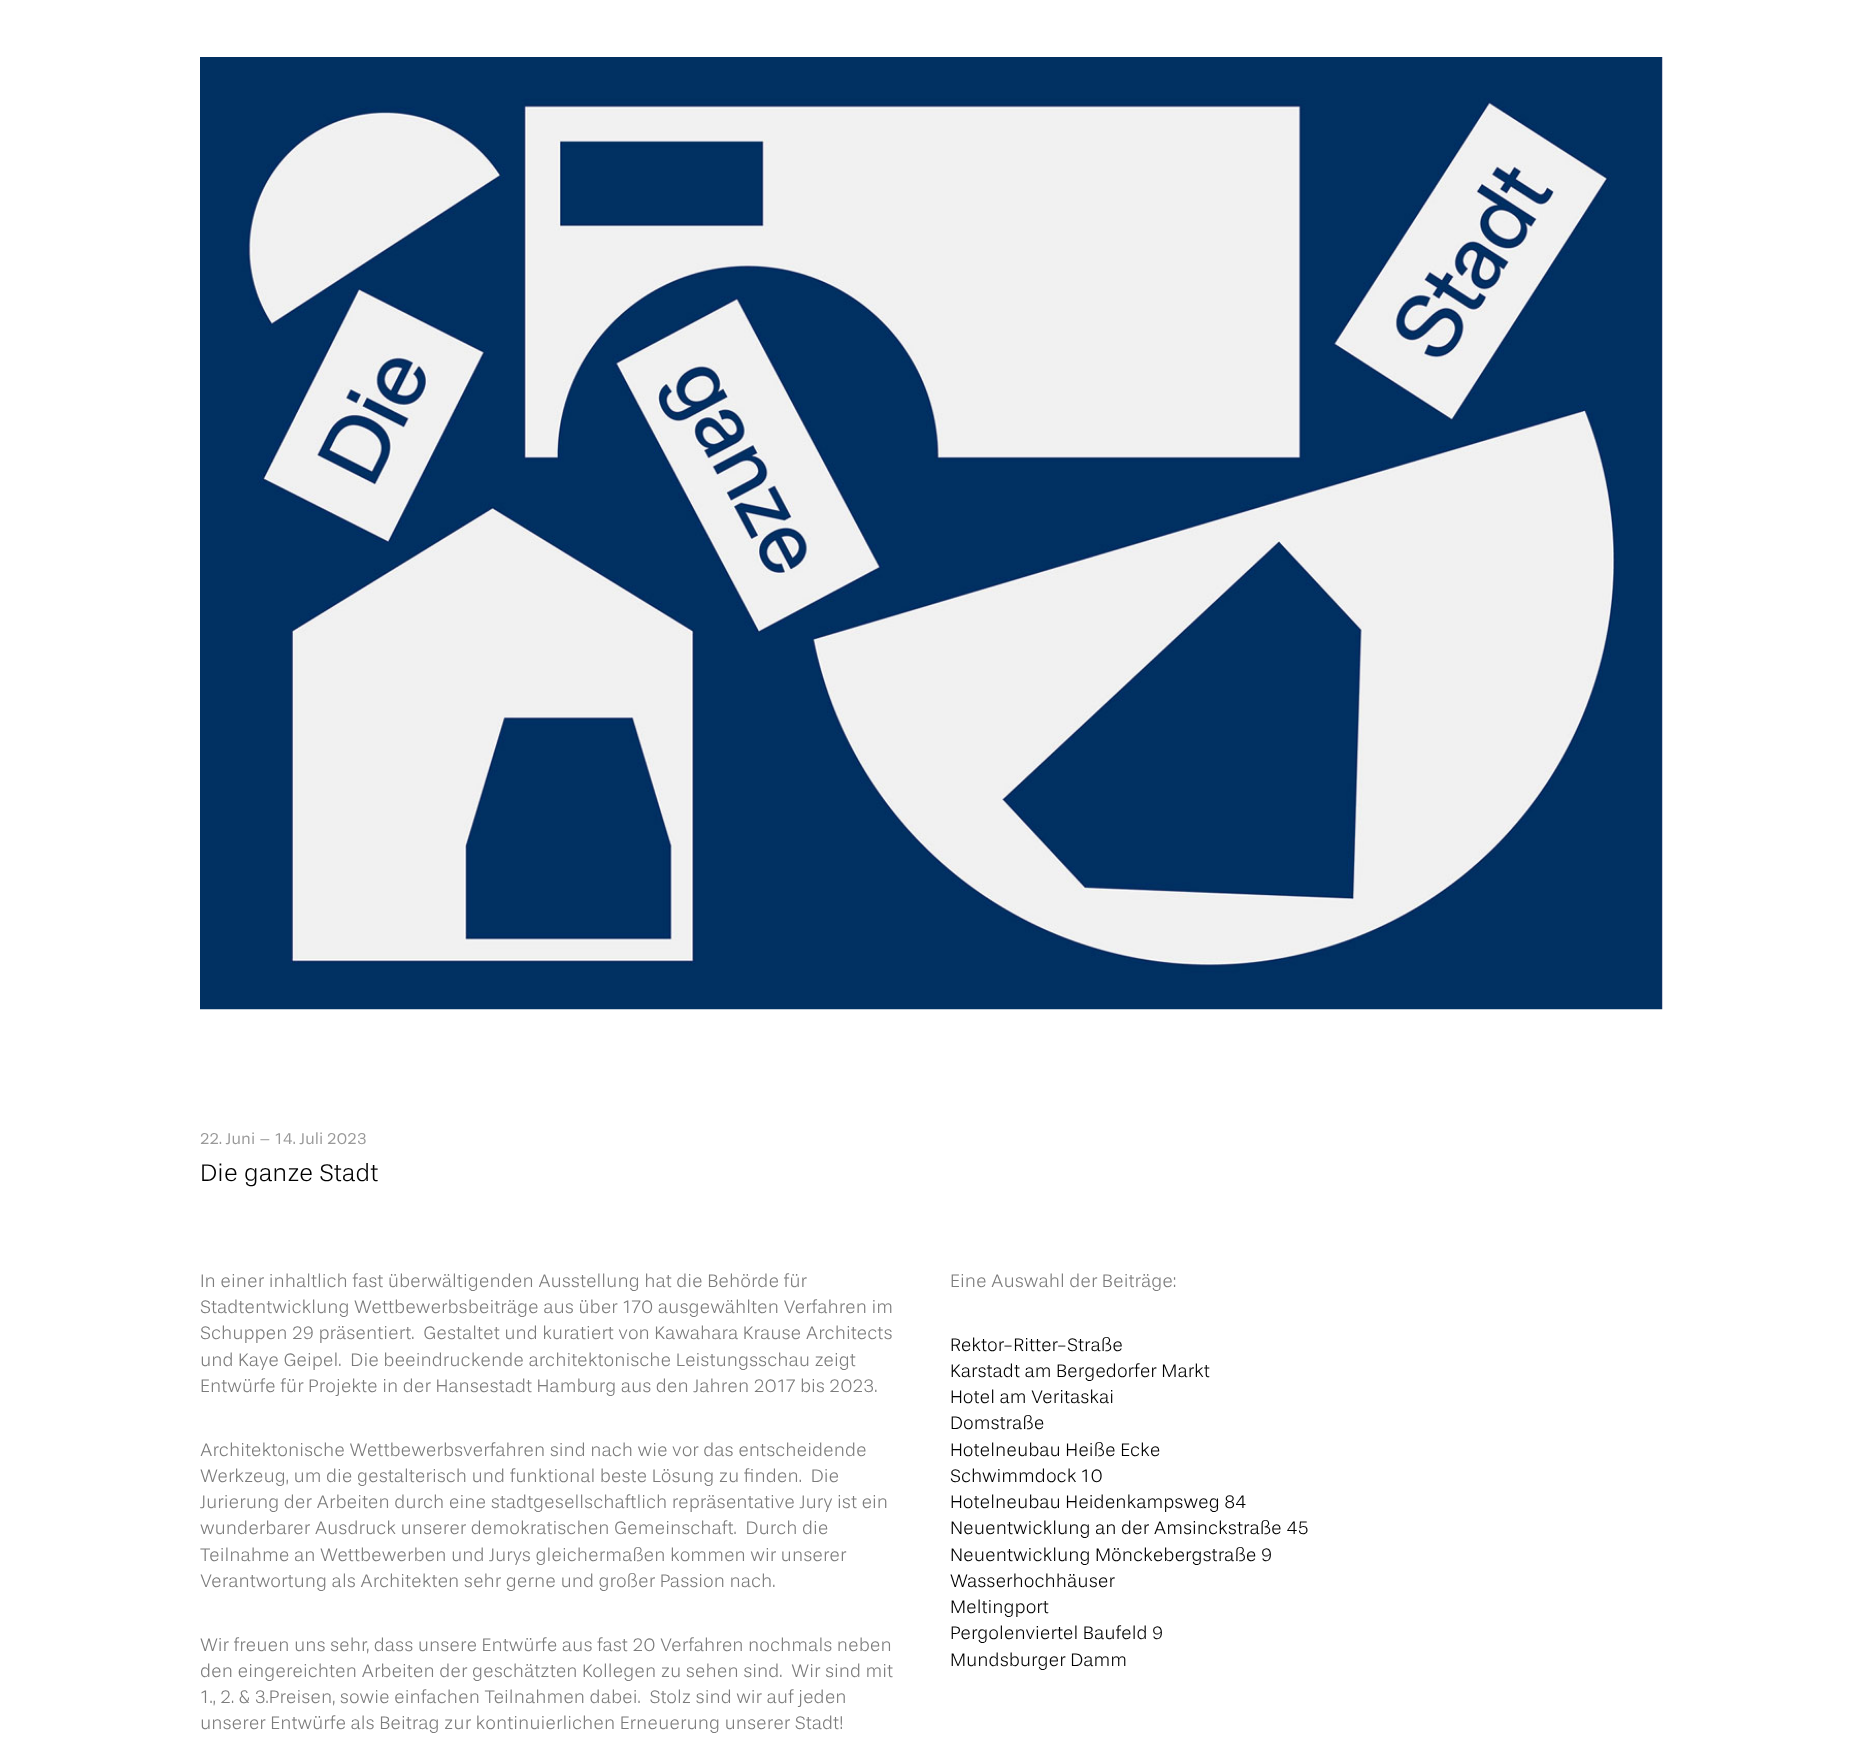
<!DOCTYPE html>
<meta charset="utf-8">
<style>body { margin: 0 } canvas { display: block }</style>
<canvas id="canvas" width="1862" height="1746"></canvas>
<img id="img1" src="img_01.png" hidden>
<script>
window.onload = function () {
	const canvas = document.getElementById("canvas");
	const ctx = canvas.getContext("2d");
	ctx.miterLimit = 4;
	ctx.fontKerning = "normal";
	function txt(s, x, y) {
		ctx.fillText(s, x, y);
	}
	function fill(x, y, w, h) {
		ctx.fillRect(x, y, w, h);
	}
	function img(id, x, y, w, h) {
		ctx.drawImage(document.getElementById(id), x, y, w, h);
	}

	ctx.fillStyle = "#FFFFFF";
	fill(0, 0, 1862, 1746);
	img("img1", 200, 57, 1463, 953);
	ctx.font = "16.25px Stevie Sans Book";
	ctx.fillStyle = "#999999";
	txt("22. Juni – 14. Juli 2023", 200, 1144);
	ctx.font = "300 25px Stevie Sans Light";
	ctx.fillStyle = "#000000";
	txt("Die ganze Stadt", 200, 1181);
	ctx.font = "300 18.75px Stevie Sans Light";
	ctx.fillStyle = "#7C7C7C";
	txt("In einer inhaltlich fast überwältigenden Ausstellung hat die Behörde für", 200, 1287);
	txt("Stadtentwicklung Wettbewerbsbeiträge aus über 170 ausgewählten Verfahren im", 200, 1313);
	txt("Schuppen 29 präsentiert.  Gestaltet und kuratiert von Kawahara Krause Architects", 200, 1339);
	txt("und Kaye Geipel.  Die beeindruckende architektonische Leistungsschau zeigt", 200, 1366);
	txt("Entwürfe für Projekte in der Hansestadt Hamburg aus den Jahren 2017 bis 2023.", 200, 1392);
	txt("Architektonische Wettbewerbsverfahren sind nach wie vor das entscheidende", 200, 1456);
	txt("Werkzeug, um die gestalterisch und funktional beste Lösung zu finden.  Die", 200, 1482);
	txt("Jurierung der Arbeiten durch eine stadtgesellschaftlich repräsentative Jury ist ein", 200, 1508);
	txt("wunderbarer Ausdruck unserer demokratischen Gemeinschaft.  Durch die", 200, 1534);
	txt("Teilnahme an Wettbewerben und Jurys gleichermaßen kommen wir unserer", 200, 1561);
	txt("Verantwortung als Architekten sehr gerne und großer Passion nach.", 200, 1587);
	txt("Wir freuen uns sehr, dass unsere Entwürfe aus fast 20 Verfahren nochmals neben", 200, 1651);
	txt("den eingereichten Arbeiten der geschätzten Kollegen zu sehen sind.  Wir sind mit", 200, 1677);
	txt("1., 2. & 3.Preisen, sowie einfachen Teilnahmen dabei.  Stolz sind wir auf jeden", 200, 1703);
	txt("unserer Entwürfe als Beitrag zur kontinuierlichen Erneuerung unserer Stadt!", 200, 1729);
	txt("Eine Auswahl der Beiträge:", 950, 1287);
	ctx.fillStyle = "#000000";
	txt("Rektor-Ritter-Straße", 950, 1351);
	txt("Karstadt am Bergedorfer Markt", 950, 1377);
	txt("Hotel am Veritaskai", 950, 1403);
	txt("Domstraße", 950, 1429);
	txt("Hotelneubau Heiße Ecke", 950, 1456);
	txt("Schwimmdock 10", 950, 1482);
	txt("Hotelneubau Heidenkampsweg 84", 950, 1508);
	txt("Neuentwicklung an der Amsinckstraße 45", 950, 1534);
	txt("Neuentwicklung Mönckebergstraße 9", 950, 1561);
	txt("Wasserhochhäuser", 950, 1587);
	txt("Meltingport", 950, 1613);
	txt("Pergolenviertel Baufeld 9", 950, 1639);
	txt("Mundsburger Damm", 950, 1666);
};
</script>
